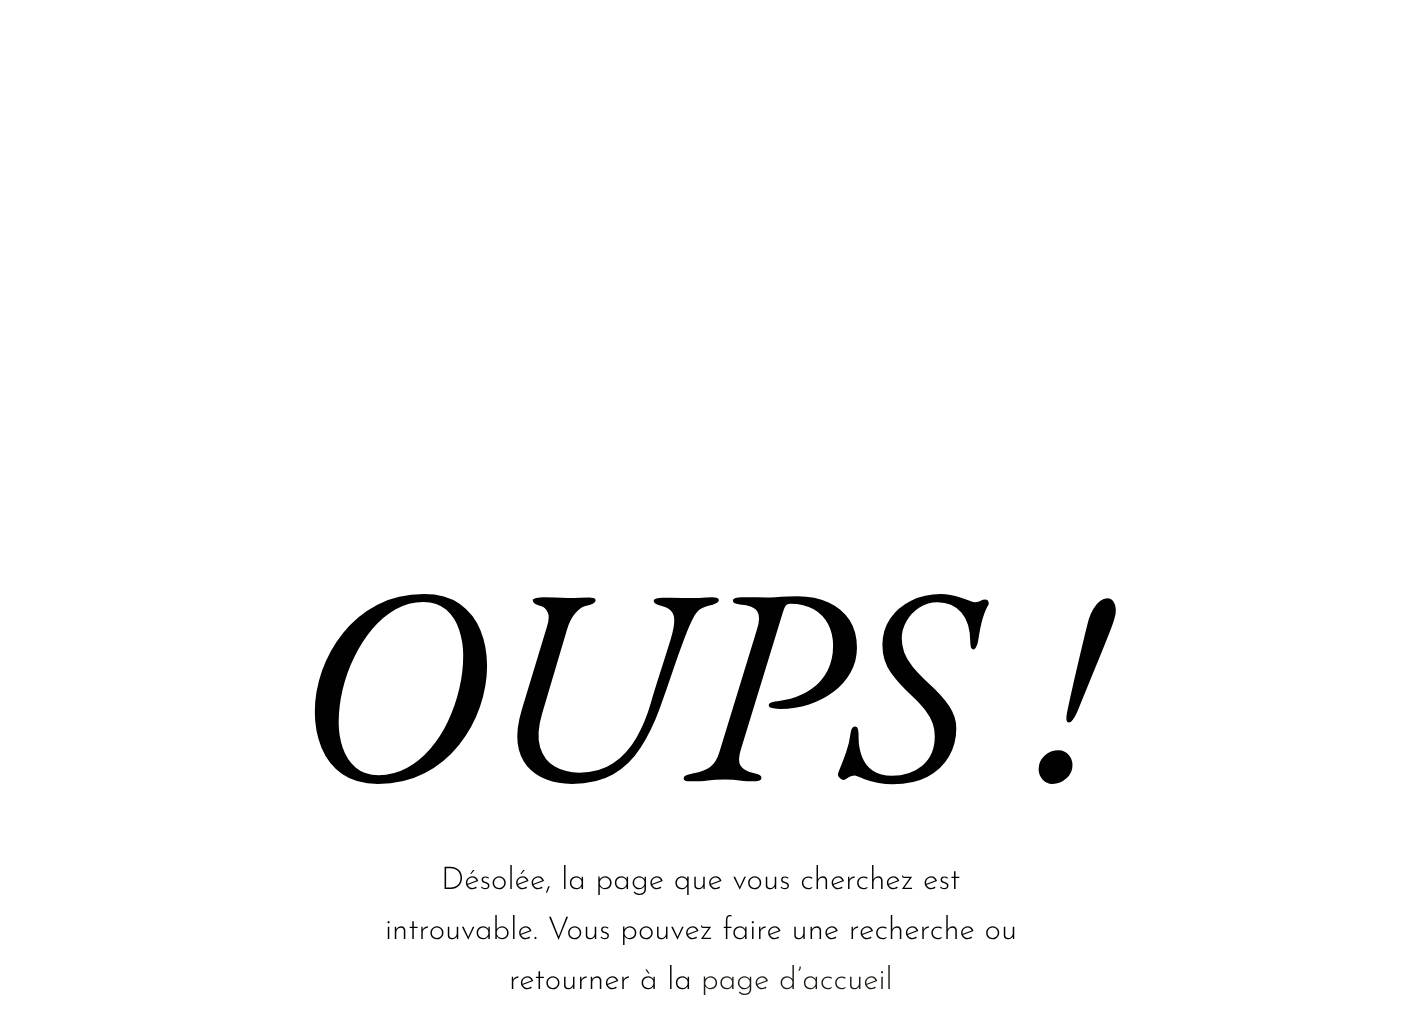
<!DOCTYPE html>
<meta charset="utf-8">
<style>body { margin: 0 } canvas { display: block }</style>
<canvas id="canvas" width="1401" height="1014"></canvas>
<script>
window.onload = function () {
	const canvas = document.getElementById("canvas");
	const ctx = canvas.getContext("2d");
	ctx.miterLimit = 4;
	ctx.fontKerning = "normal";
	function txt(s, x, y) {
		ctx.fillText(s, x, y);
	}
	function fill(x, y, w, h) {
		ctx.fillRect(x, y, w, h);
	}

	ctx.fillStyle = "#FFFFFF";
	fill(0, 0, 1401, 1014);
	ctx.font = "italic 280px EB Garamond";
	ctx.fillStyle = "#010101";
	txt("OUPS !", 293, 780);
	ctx.font = "300 31.5px Josefin Sans";
	txt("Désolée, la page que vous cherchez est", 441, 889);
	txt("introuvable. Vous pouvez faire une recherche ou", 385, 939);
	txt("retourner à la", 509, 989);
	ctx.fillStyle = "#1B1B15";
	txt("page d’accueil", 701, 989);
};
</script>
